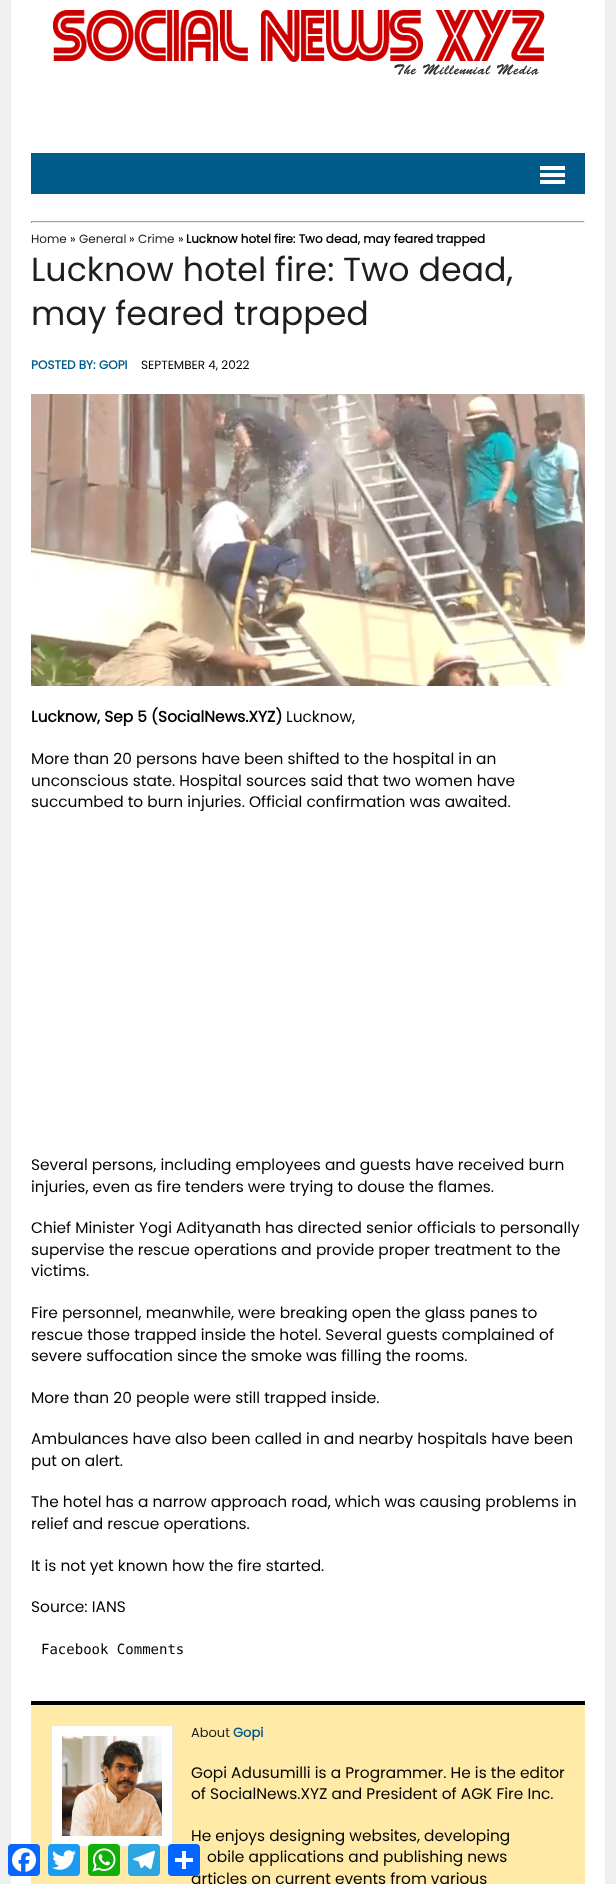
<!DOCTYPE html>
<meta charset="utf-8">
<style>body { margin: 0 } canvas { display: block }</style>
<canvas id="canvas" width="616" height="1884"></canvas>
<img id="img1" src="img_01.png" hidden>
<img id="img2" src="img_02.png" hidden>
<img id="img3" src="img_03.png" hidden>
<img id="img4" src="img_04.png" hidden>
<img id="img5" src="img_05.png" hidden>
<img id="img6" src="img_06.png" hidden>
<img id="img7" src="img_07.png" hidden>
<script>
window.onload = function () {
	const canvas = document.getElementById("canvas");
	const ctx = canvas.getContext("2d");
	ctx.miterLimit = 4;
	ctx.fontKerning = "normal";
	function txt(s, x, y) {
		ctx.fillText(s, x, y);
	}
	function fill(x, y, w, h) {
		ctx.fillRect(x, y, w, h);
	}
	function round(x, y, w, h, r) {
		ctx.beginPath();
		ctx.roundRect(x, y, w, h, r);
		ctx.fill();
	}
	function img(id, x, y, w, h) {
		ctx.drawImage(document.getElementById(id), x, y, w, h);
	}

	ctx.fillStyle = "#EFEFEF";
	fill(0, 0, 616, 1884);
	ctx.fillStyle = "#FFFFFF";
	fill(11, 0, 594, 1884);
	img("img1", 52, 10, 493, 65);
	ctx.fillStyle = "#005A8C";
	fill(31, 153, 554, 41);
	ctx.fillStyle = "#FFFFFF";
	fill(540, 166, 25, 4);
	fill(540, 173, 25, 4);
	fill(540, 180, 25, 4);
	ctx.fillStyle = "#9F9F9F";
	fill(31, 221, 554, 1);
	ctx.fillStyle = "#EEEEEE";
	fill(584, 221, 1, 2);
	fill(31, 222, 554, 1);
	ctx.fillStyle = "#9F9F9F";
	fill(31, 221, 1, 2);
	img("img2", 31, 394, 554, 292);
	ctx.fillStyle = "#FFEAA8";
	fill(31, 1705, 554, 179);
	ctx.fillStyle = "#000000";
	fill(31, 1701, 554, 4);
	ctx.fillStyle = "#FFFFFF";
	ctx.beginPath();
	ctx.rect(51.5, 1725.5, 121, 121);
	ctx.fill();
	ctx.strokeStyle = "#E7E7E7";
	ctx.stroke();
	img("img3", 62, 1736, 100, 100);
	ctx.fillStyle = "#0866FF";
	round(8, 1844, 32, 32, 4);
	img("img4", 12, 1848, 24, 24);
	ctx.fillStyle = "#1D9BF0";
	round(48, 1844, 32, 32, 4);
	img("img5", 52, 1850, 24, 20);
	ctx.fillStyle = "#12AF0A";
	round(88, 1844, 32, 32, 4);
	img("img6", 92, 1848, 24, 24);
	ctx.fillStyle = "#2CA5E0";
	round(128, 1844, 32, 32, 4);
	img("img7", 133, 1850, 22, 20);
	ctx.font = "12px Poppins";
	ctx.fillStyle = "#1F1E1E";
	txt("Home", 31, 243);
	ctx.fillStyle = "#000000";
	txt("»", 70, 243);
	ctx.fillStyle = "#1F1E1E";
	txt("General", 79, 243);
	ctx.fillStyle = "#000000";
	txt("»", 129, 243);
	ctx.fillStyle = "#1F1E1E";
	txt("Crime", 138, 243);
	ctx.fillStyle = "#000000";
	txt("»", 178, 243);
	ctx.font = "bold 12px Poppins";
	txt("Lucknow hotel fire: Two dead, may feared trapped", 186, 243);
	ctx.font = "33.25px Poppins";
	ctx.fillStyle = "#1F1E1E";
	txt("Lucknow hotel fire: Two dead,", 31, 281);
	txt("may feared trapped", 31, 325);
	ctx.font = "bold 12px Poppins";
	ctx.fillStyle = "#005A8C";
	txt("POSTED BY: GOPI", 31, 369);
	ctx.font = "12px Poppins";
	ctx.fillStyle = "#000000";
	txt("SEPTEMBER 4, 2022", 141, 369);
	ctx.font = "bold 15.4px Poppins";
	txt("Lucknow, Sep 5 (SocialNews.XYZ)", 31, 722);
	ctx.font = "15.4px Poppins";
	txt("Lucknow,", 286, 722);
	txt("More than 20 persons have been shifted to the hospital in an", 31, 764);
	txt("unconscious state. Hospital sources said that two women have", 31, 786);
	txt("succumbed to burn injuries. Official confirmation was awaited.", 31, 807);
	txt("Several persons, including employees and guests have received burn", 31, 1170);
	txt("injuries, even as fire tenders were trying to douse the flames.", 31, 1192);
	txt("Chief Minister Yogi Adityanath has directed senior officials to personally", 31, 1233);
	txt("supervise the rescue operations and provide proper treatment to the", 31, 1255);
	txt("victims.", 31, 1276);
	txt("Fire personnel, meanwhile, were breaking open the glass panes to", 31, 1318);
	txt("rescue those trapped inside the hotel. Several guests complained of", 31, 1340);
	txt("severe suffocation since the smoke was filling the rooms.", 31, 1361);
	txt("More than 20 people were still trapped inside.", 31, 1403);
	txt("Ambulances have also been called in and nearby hospitals have been", 31, 1444);
	txt("put on alert.", 31, 1466);
	txt("The hotel has a narrow approach road, which was causing problems in", 31, 1507);
	txt("relief and rescue operations.", 31, 1529);
	txt("It is not yet known how the fire started.", 31, 1571);
	txt("Source: IANS", 31, 1612);
	ctx.font = "14px DejaVu Sans Mono";
	txt("Facebook Comments", 41, 1654);
	ctx.font = "13px Poppins";
	ctx.fillStyle = "#1F1E1E";
	txt("About", 191, 1737);
	ctx.font = "bold 13px Poppins";
	ctx.fillStyle = "#005A8C";
	txt("Gopi", 233, 1737);
	ctx.font = "15.4px Poppins";
	ctx.fillStyle = "#000000";
	txt("Gopi Adusumilli is a Programmer. He is the editor", 191, 1778);
	txt("of SocialNews.XYZ and President of AGK Fire Inc.", 191, 1799);
	txt("He enjoys designing websites, developing", 191, 1841);
	txt("obile applications and publishing news", 207, 1862);
	txt("articles on current events from various", 191, 1884);
	ctx.fillStyle = "#0166FF";
	round(168, 1844, 32, 32, 4);
	ctx.fillStyle = "#FFFFFF";
	fill(182, 1851, 4, 18);
	fill(175, 1858, 18, 4);
};
</script>
